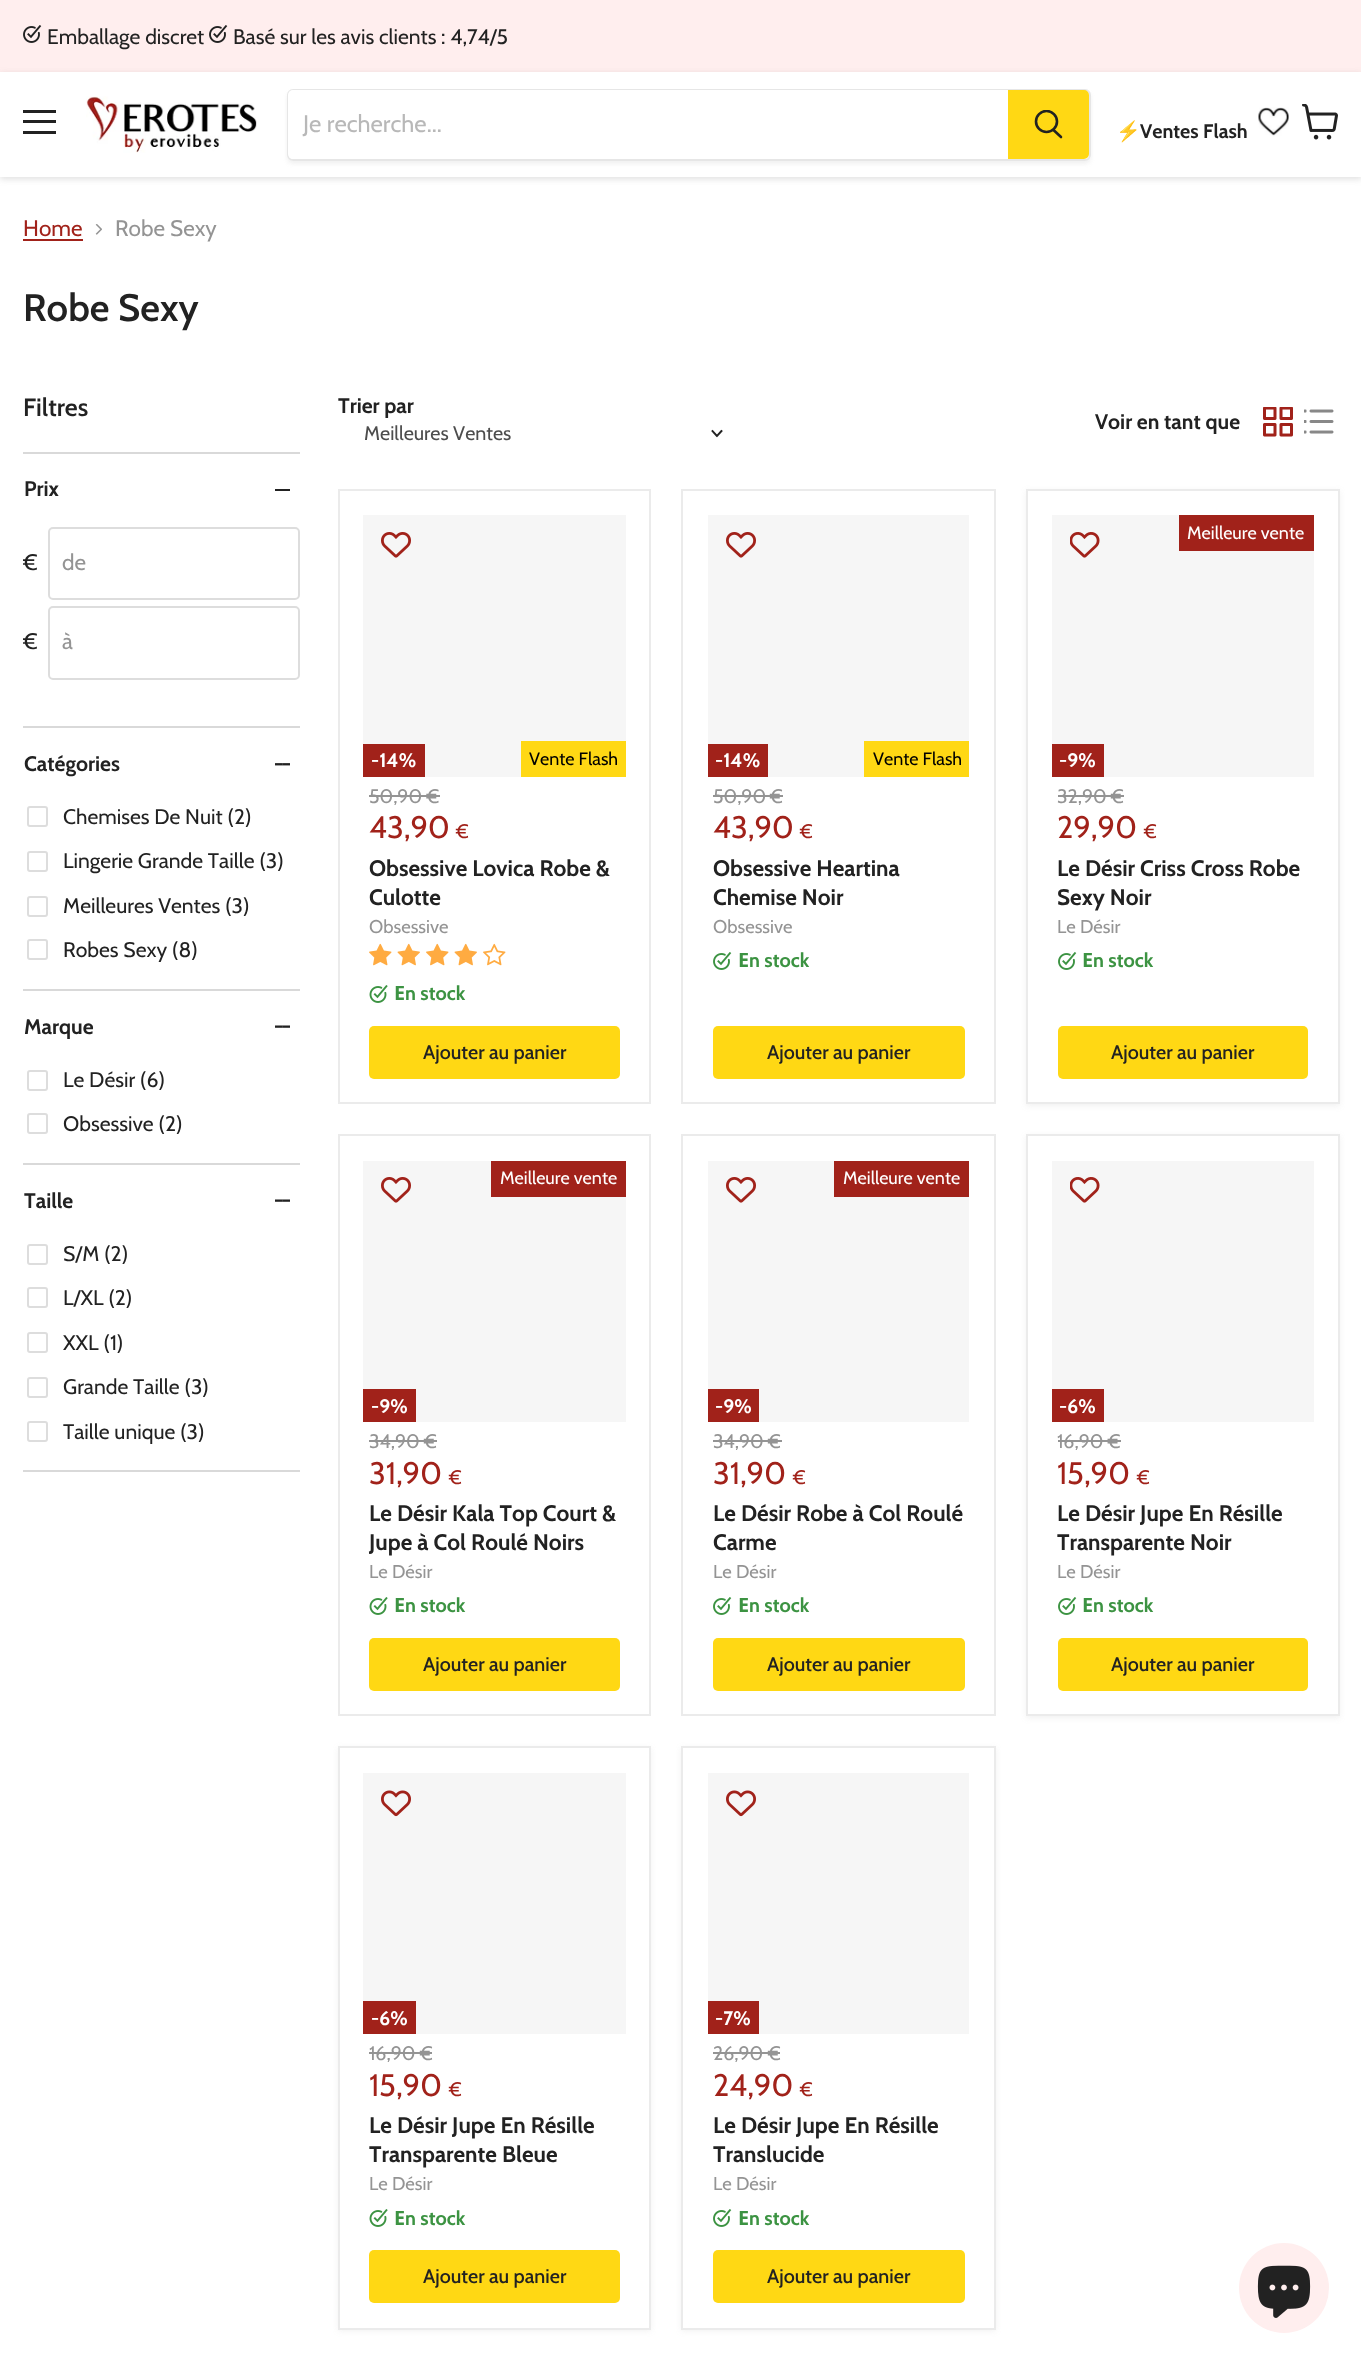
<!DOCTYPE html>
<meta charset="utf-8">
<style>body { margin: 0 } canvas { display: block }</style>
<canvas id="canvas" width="1361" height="2363"></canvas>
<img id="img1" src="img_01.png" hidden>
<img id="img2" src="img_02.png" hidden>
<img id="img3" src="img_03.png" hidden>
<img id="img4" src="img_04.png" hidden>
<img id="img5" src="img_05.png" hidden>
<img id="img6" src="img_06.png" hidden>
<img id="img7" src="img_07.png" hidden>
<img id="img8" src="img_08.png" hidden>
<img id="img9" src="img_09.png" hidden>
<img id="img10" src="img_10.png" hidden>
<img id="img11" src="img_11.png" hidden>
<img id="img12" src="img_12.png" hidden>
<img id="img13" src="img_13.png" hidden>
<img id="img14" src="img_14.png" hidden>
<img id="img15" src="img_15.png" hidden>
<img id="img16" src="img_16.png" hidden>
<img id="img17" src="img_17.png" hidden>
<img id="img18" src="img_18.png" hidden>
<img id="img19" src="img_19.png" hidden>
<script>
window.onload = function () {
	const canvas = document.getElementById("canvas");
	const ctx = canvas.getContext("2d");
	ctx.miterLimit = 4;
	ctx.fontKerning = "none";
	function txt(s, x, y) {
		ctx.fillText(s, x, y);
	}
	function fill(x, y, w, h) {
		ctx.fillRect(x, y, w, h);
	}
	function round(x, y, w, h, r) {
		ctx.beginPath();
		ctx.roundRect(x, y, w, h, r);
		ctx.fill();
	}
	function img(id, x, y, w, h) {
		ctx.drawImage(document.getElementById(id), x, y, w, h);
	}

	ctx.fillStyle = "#FFFFFF";
	fill(0, 0, 1361, 2363);
	ctx.fillStyle = "#FFEEEE";
	fill(0, 0, 1361, 72);
	img("img1", 23, 25, 19, 18);
	img("img1", 209, 25, 19, 18);
	ctx.save();
	ctx.beginPath();
	ctx.moveTo(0, 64);
	ctx.lineTo(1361, 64);
	ctx.lineTo(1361, 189);
	ctx.lineTo(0, 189);
	ctx.closePath();
	ctx.moveTo(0, 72);
	ctx.lineTo(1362, 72);
	ctx.lineTo(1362, 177);
	ctx.lineTo(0, 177);
	ctx.closePath();
	ctx.clip("evenodd");
	ctx.fillStyle = "rgba(128, 128, 128, 0.25)";
	ctx.filter = "blur(3px)";
	ctx.beginPath();
	ctx.rect(0, 74, 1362, 105);
	ctx.fill();
	ctx.filter = "none";
	ctx.restore();
	ctx.fillStyle = "#222222";
	fill(23, 110, 33, 3);
	fill(23, 120, 33, 3);
	fill(23, 131, 33, 3);
	img("img2", 86, 96, 171, 57);
	ctx.save();
	ctx.beginPath();
	ctx.moveTo(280, 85);
	ctx.lineTo(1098, 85);
	ctx.lineTo(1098, 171);
	ctx.lineTo(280, 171);
	ctx.closePath();
	ctx.moveTo(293, 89);
	ctx.lineTo(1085, 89);
	ctx.bezierCurveTo(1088.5, 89, 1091, 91.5, 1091, 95);
	ctx.lineTo(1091, 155);
	ctx.bezierCurveTo(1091, 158.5, 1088.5, 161, 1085, 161);
	ctx.lineTo(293, 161);
	ctx.bezierCurveTo(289.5, 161, 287, 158.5, 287, 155);
	ctx.lineTo(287, 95);
	ctx.bezierCurveTo(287, 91.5, 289.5, 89, 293, 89);
	ctx.closePath();
	ctx.clip("evenodd");
	ctx.fillStyle = "rgba(128, 128, 128, 0.11)";
	ctx.filter = "blur(2px)";
	ctx.beginPath();
	ctx.roundRect(287, 92, 804, 72, 6);
	ctx.fill();
	ctx.filter = "none";
	ctx.restore();
	ctx.beginPath();
	ctx.roundRect(288, 90, 802, 70, 5);
	ctx.strokeStyle = "rgba(128, 128, 128, 0.2)";
	ctx.lineWidth = 2;
	ctx.stroke();
	ctx.fillStyle = "#FFFFFF";
	ctx.beginPath();
	ctx.roundRect(288, 90, 720, 69, [5, 0, 0, 5]);
	ctx.fill();
	ctx.fillStyle = "#FFD814";
	ctx.beginPath();
	ctx.roundRect(1009, 91, 79, 67, [0, 4, 4, 0]);
	ctx.fill();
	ctx.strokeStyle = "#FFD814";
	ctx.stroke();
	ctx.beginPath();
	ctx.moveTo(1061, 137);
	ctx.lineTo(1053.5, 130);
	ctx.strokeStyle = "#222222";
	ctx.lineWidth = 2.6;
	ctx.lineCap = "round";
	ctx.stroke();
	ctx.save();
	ctx.beginPath();
	ctx.rect(1034, 110, 30, 31);
	ctx.clip();
	ctx.beginPath();
	ctx.arc(1046.5, 121.5, 10.5, 0, Math.PI * 2);
	ctx.stroke();
	ctx.restore();
	img("img3", 1258, 107, 31, 30);
	img("img4", 1302, 104, 36, 36);
	ctx.fillStyle = "#A1221A";
	fill(23, 239, 60, 2);
	img("img5", 95, 224, 7, 11);
	ctx.fillStyle = "#D9D9D9";
	fill(23, 452, 277, 2);
	ctx.fillStyle = "#222222";
	fill(275, 489, 15, 2);
	ctx.beginPath();
	ctx.roundRect(49, 528, 250, 71, 4);
	ctx.strokeStyle = "#DDDDDD";
	ctx.lineWidth = 2;
	ctx.stroke();
	ctx.beginPath();
	ctx.roundRect(49, 607, 250, 72, 4);
	ctx.stroke();
	ctx.fillStyle = "#D9D9D9";
	fill(23, 726, 277, 2);
	img("img6", 275, 763, 15, 3);
	ctx.beginPath();
	ctx.roundRect(28, 807, 19, 19, 2);
	ctx.stroke();
	ctx.beginPath();
	ctx.roundRect(28, 852, 19, 19, 2);
	ctx.stroke();
	ctx.beginPath();
	ctx.roundRect(28, 897, 19, 19, 2);
	ctx.stroke();
	ctx.beginPath();
	ctx.roundRect(28, 940, 19, 19, 2);
	ctx.stroke();
	fill(23, 989, 277, 2);
	img("img7", 275, 1025, 15, 3);
	ctx.beginPath();
	ctx.roundRect(28, 1071, 19, 19, 2);
	ctx.stroke();
	ctx.beginPath();
	ctx.roundRect(28, 1114, 19, 19, 2);
	ctx.stroke();
	fill(23, 1163, 277, 2);
	fill(23, 1470, 277, 2);
	img("img8", 275, 1199, 15, 3);
	ctx.beginPath();
	ctx.roundRect(28, 1245, 19, 19, 2);
	ctx.stroke();
	ctx.beginPath();
	ctx.roundRect(28, 1288, 19, 19, 2);
	ctx.stroke();
	ctx.beginPath();
	ctx.roundRect(28, 1333, 19, 19, 2);
	ctx.stroke();
	ctx.beginPath();
	ctx.roundRect(28, 1378, 19, 19, 2);
	ctx.stroke();
	ctx.beginPath();
	ctx.roundRect(28, 1422, 19, 19, 2);
	ctx.stroke();
	ctx.beginPath();
	ctx.moveTo(717, 436);
	ctx.lineTo(721.5, 431);
	ctx.moveTo(717, 436);
	ctx.lineTo(712.5, 431);
	ctx.strokeStyle = "#222222";
	ctx.lineWidth = 1.9;
	ctx.lineCap = "square";
	ctx.stroke();
	img("img9", 1263, 407, 30, 30);
	img("img10", 1304, 409, 30, 25);
	ctx.strokeStyle = "#EBEBEB";
	ctx.lineWidth = 2;
	ctx.strokeRect(339, 490, 311, 613);
	ctx.fillStyle = "#F6F6F6";
	fill(363, 515, 263, 262);
	img("img11", 381, 532, 30, 26);
	ctx.fillStyle = "#A1221A";
	fill(363, 744, 62, 33);
	ctx.fillStyle = "#FFD814";
	fill(521, 741, 105, 36);
	ctx.fillStyle = "#949494";
	fill(369, 795, 71, 2);
	img("img12", 369, 943, 23, 23);
	img("img13", 397, 943, 23, 23);
	img("img12", 426, 943, 23, 23);
	img("img13", 454, 943, 23, 23);
	img("img14", 483, 943, 23, 23);
	img("img15", 369, 985, 19, 18);
	ctx.fillStyle = "#FFD814";
	round(369, 1026, 251, 53, 5);
	ctx.strokeRect(682, 490, 313, 613);
	ctx.fillStyle = "#F6F6F6";
	fill(708, 515, 261, 262);
	img("img11", 726, 532, 30, 26);
	ctx.fillStyle = "#A1221A";
	fill(708, 744, 60, 33);
	ctx.fillStyle = "#FFD814";
	fill(864, 741, 105, 36);
	ctx.fillStyle = "#949494";
	fill(713, 795, 58, 2);
	fill(771, 795, 12, 2);
	img("img16", 713, 952, 19, 18);
	ctx.fillStyle = "#FFD814";
	round(713, 1026, 252, 53, 5);
	ctx.fillStyle = "rgba(128, 128, 128, 0.11)";
	ctx.filter = "blur(3px)";
	ctx.beginPath();
	ctx.rect(1026, 491, 314, 615);
	ctx.fill();
	ctx.filter = "none";
	ctx.fillStyle = "#FFFFFF";
	ctx.beginPath();
	ctx.rect(1027, 490, 312, 613);
	ctx.fill();
	ctx.stroke();
	ctx.fillStyle = "#F6F6F6";
	fill(1052, 515, 262, 262);
	img("img17", 1070, 532, 30, 26);
	ctx.fillStyle = "#A1221A";
	fill(1179, 515, 135, 36);
	fill(1052, 744, 52, 33);
	ctx.fillStyle = "#949494";
	fill(1058, 795, 54, 2);
	fill(1112, 795, 12, 2);
	img("img16", 1058, 952, 19, 18);
	ctx.fillStyle = "#FFD814";
	round(1058, 1026, 250, 53, 5);
	ctx.strokeRect(339, 1135, 311, 580);
	ctx.fillStyle = "#F6F6F6";
	fill(363, 1161, 263, 261);
	img("img11", 381, 1177, 30, 26);
	ctx.fillStyle = "#A1221A";
	fill(491, 1161, 135, 36);
	fill(363, 1389, 53, 33);
	ctx.fillStyle = "#949494";
	fill(369, 1440, 56, 2);
	fill(425, 1440, 12, 2);
	img("img15", 369, 1597, 19, 18);
	ctx.fillStyle = "#FFD814";
	round(369, 1638, 251, 53, 5);
	ctx.strokeRect(682, 1135, 313, 580);
	ctx.fillStyle = "#F6F6F6";
	fill(708, 1161, 261, 261);
	img("img11", 726, 1177, 30, 26);
	ctx.fillStyle = "#A1221A";
	fill(834, 1161, 135, 36);
	fill(708, 1389, 51, 33);
	ctx.fillStyle = "#949494";
	fill(713, 1440, 55, 2);
	fill(768, 1440, 14, 2);
	img("img16", 713, 1597, 19, 18);
	ctx.fillStyle = "#FFD814";
	round(713, 1638, 252, 53, 5);
	ctx.fillStyle = "rgba(128, 128, 128, 0.11)";
	ctx.filter = "blur(3px)";
	ctx.beginPath();
	ctx.rect(1026, 1136, 314, 582);
	ctx.fill();
	ctx.filter = "none";
	ctx.fillStyle = "#FFFFFF";
	ctx.beginPath();
	ctx.rect(1027, 1135, 312, 580);
	ctx.fill();
	ctx.stroke();
	ctx.fillStyle = "#F6F6F6";
	fill(1052, 1161, 262, 261);
	img("img17", 1070, 1177, 30, 26);
	ctx.fillStyle = "#A1221A";
	fill(1052, 1389, 52, 33);
	ctx.fillStyle = "#949494";
	fill(1058, 1440, 63, 2);
	img("img16", 1058, 1597, 19, 18);
	ctx.fillStyle = "#FFD814";
	round(1058, 1638, 250, 53, 5);
	ctx.fillStyle = "rgba(128, 128, 128, 0.11)";
	ctx.filter = "blur(3px)";
	ctx.beginPath();
	ctx.rect(338, 1748, 313, 583);
	ctx.fill();
	ctx.filter = "none";
	ctx.fillStyle = "#FFFFFF";
	ctx.beginPath();
	ctx.rect(339, 1747, 311, 582);
	ctx.fill();
	ctx.stroke();
	ctx.fillStyle = "#F6F6F6";
	fill(363, 1773, 263, 261);
	img("img18", 381, 1790, 30, 27);
	ctx.fillStyle = "#A1221A";
	fill(363, 2001, 53, 33);
	ctx.fillStyle = "#949494";
	fill(369, 2052, 51, 2);
	fill(420, 2052, 12, 2);
	img("img15", 369, 2209, 19, 18);
	ctx.fillStyle = "#FFD814";
	round(369, 2250, 251, 53, 5);
	ctx.fillStyle = "rgba(128, 128, 128, 0.11)";
	ctx.filter = "blur(3px)";
	ctx.beginPath();
	ctx.rect(681, 1748, 315, 583);
	ctx.fill();
	ctx.filter = "none";
	ctx.fillStyle = "#FFFFFF";
	ctx.beginPath();
	ctx.rect(682, 1747, 313, 582);
	ctx.fill();
	ctx.stroke();
	ctx.fillStyle = "#F6F6F6";
	fill(708, 1773, 261, 261);
	img("img18", 726, 1790, 30, 27);
	ctx.fillStyle = "#A1221A";
	fill(708, 2001, 51, 33);
	ctx.fillStyle = "#949494";
	fill(713, 2052, 55, 2);
	fill(768, 2052, 12, 2);
	img("img16", 713, 2209, 19, 18);
	ctx.fillStyle = "#FFD814";
	round(713, 2250, 252, 53, 5);
	ctx.fillStyle = "#FFEEEE";
	ctx.beginPath();
	ctx.arc(1284, 2288, 45, 0, Math.PI * 2);
	ctx.fill();
	img("img19", 1257, 2265, 54, 53);
	ctx.font = "21.1px Cabin";
	ctx.fillStyle = "#222222";
	txt("Emballage discret", 47, 44);
	txt("Basé sur les avis clients : 4,74/5", 233, 44);
	ctx.font = "24px Cabin";
	ctx.fillStyle = "#B8B8B8";
	txt("Je recherche...", 303, 132);
	ctx.font = "bold 19.75px Noto Color Emoji";
	ctx.fillStyle = "#222222";
	txt("⚡", 1116, 138);
	ctx.font = "bold 19.75px Cabin";
	txt("Ventes Flash", 1140, 138);
	ctx.font = "22.5px Cabin";
	ctx.fillStyle = "#A1221A";
	txt("Home", 23, 236);
	ctx.fillStyle = "#949494";
	txt("Robe Sexy", 115, 236);
	ctx.font = "600 38.25px Cabin";
	ctx.fillStyle = "#222222";
	txt("Robe Sexy", 23, 321);
	ctx.font = "600 25px Cabin";
	txt("Filtres", 23, 416);
	ctx.font = "bold 21.1px Cabin";
	txt("Prix", 24, 496);
	ctx.save();
	ctx.beginPath();
	ctx.rect(23, 503, 277, 201);
	ctx.clip();
	ctx.font = "22.5px Cabin";
	txt("€", 23, 570);
	ctx.restore();
	ctx.font = "22.5px Cabin";
	ctx.fillStyle = "#949494";
	txt("de", 62, 570);
	ctx.save();
	ctx.beginPath();
	ctx.rect(23, 503, 277, 201);
	ctx.clip();
	ctx.fillStyle = "#222222";
	txt("€", 23, 649);
	ctx.restore();
	txt("à", 62, 649);
	ctx.font = "bold 21.1px Cabin";
	ctx.fillStyle = "#222222";
	txt("Catégories", 24, 771);
	ctx.font = "21.1px Cabin";
	txt("Chemises De Nuit (2)", 63, 824);
	txt("Lingerie Grande Taille (3)", 63, 868);
	txt("Meilleures Ventes (3)", 63, 913);
	txt("Robes Sexy (8)", 63, 957);
	ctx.font = "bold 21.1px Cabin";
	txt("Marque", 24, 1034);
	ctx.font = "21.1px Cabin";
	txt("Le Désir (6)", 63, 1087);
	txt("Obsessive (2)", 63, 1131);
	ctx.font = "bold 21.1px Cabin";
	txt("Taille", 24, 1208);
	ctx.font = "21.1px Cabin";
	txt("S/M (2)", 63, 1261);
	txt("L/XL (2)", 63, 1305);
	txt("XXL (1)", 63, 1350);
	txt("Grande Taille (3)", 63, 1394);
	txt("Taille unique (3)", 63, 1439);
	ctx.font = "bold 21.1px Cabin";
	txt("Trier par", 338, 413);
	ctx.font = "19.75px Cabin";
	ctx.fillStyle = "#4D4D4D";
	txt("Meilleures Ventes", 364, 440);
	ctx.font = "bold 21.1px Cabin";
	ctx.fillStyle = "#222222";
	txt("Voir en tant que", 1095, 429);
	ctx.font = "bold 19.5px Cabin";
	ctx.fillStyle = "#FFFFFF";
	txt("-14%", 371, 767);
	ctx.font = "18px Cabin";
	ctx.fillStyle = "#000000";
	txt("Vente Flash", 529, 765);
	ctx.font = "19.5px Cabin";
	ctx.fillStyle = "#949494";
	txt("50,90 €", 369, 803);
	ctx.font = "31px Cabin";
	ctx.fillStyle = "#A1221A";
	txt("43,90", 369, 838);
	ctx.font = "19.5px Cabin";
	txt("€", 456, 838);
	ctx.font = "bold 22.5px Cabin";
	ctx.fillStyle = "#222222";
	txt("Obsessive Lovica Robe &", 369, 876);
	txt("Culotte", 369, 905);
	ctx.font = "18.5px Cabin";
	ctx.fillStyle = "#949494";
	txt("Obsessive", 369, 933);
	ctx.font = "bold 19.75px Noto Sans";
	ctx.fillStyle = "#3C9342";
	txt("E", 394, 1000);
	ctx.font = "bold 19.75px Cabin";
	txt("n stock", 405, 1000);
	ctx.font = "500 19.75px Cabin";
	ctx.fillStyle = "#222222";
	txt("Ajouter au panier", 423, 1059);
	ctx.font = "bold 19.5px Cabin";
	ctx.fillStyle = "#FFFFFF";
	txt("-14%", 715, 767);
	ctx.font = "18px Cabin";
	ctx.fillStyle = "#000000";
	txt("Vente Flash", 873, 765);
	ctx.font = "19.5px Cabin";
	ctx.fillStyle = "#949494";
	txt("50,90", 713, 803);
	txt("€", 770, 803);
	ctx.font = "31px Cabin";
	ctx.fillStyle = "#A1221A";
	txt("43,90", 713, 838);
	ctx.font = "19.5px Cabin";
	txt("€", 800, 838);
	ctx.font = "bold 22.5px Cabin";
	ctx.fillStyle = "#222222";
	txt("Obsessive Heartina", 713, 876);
	txt("Chemise Noir", 713, 905);
	ctx.font = "18.5px Cabin";
	ctx.fillStyle = "#949494";
	txt("Obsessive", 713, 933);
	ctx.font = "bold 19.75px Noto Sans";
	ctx.fillStyle = "#3C9342";
	txt("E", 738, 967);
	ctx.font = "bold 19.75px Cabin";
	txt("n stock", 749, 967);
	ctx.font = "500 19.75px Cabin";
	ctx.fillStyle = "#222222";
	txt("Ajouter au panier", 767, 1059);
	ctx.font = "18px Cabin";
	ctx.fillStyle = "#FFFFFF";
	txt("Meilleure vente", 1187, 539);
	ctx.font = "bold 19.5px Cabin";
	txt("-9%", 1059, 767);
	ctx.font = "19.5px Cabin";
	ctx.fillStyle = "#949494";
	txt("32,90", 1057, 803);
	txt("€", 1111, 803);
	ctx.font = "31px Cabin";
	ctx.fillStyle = "#A1221A";
	txt("29,90", 1057, 838);
	ctx.font = "19.5px Cabin";
	txt("€", 1144, 838);
	ctx.font = "bold 22.5px Cabin";
	ctx.fillStyle = "#222222";
	txt("Le Désir Criss Cross Robe", 1057, 876);
	txt("Sexy Noir", 1057, 905);
	ctx.font = "18.5px Cabin";
	ctx.fillStyle = "#949494";
	txt("Le Désir", 1057, 933);
	ctx.font = "bold 19.75px Noto Sans";
	ctx.fillStyle = "#3C9342";
	txt("E", 1082, 967);
	ctx.font = "bold 19.75px Cabin";
	txt("n stock", 1093, 967);
	ctx.font = "500 19.75px Cabin";
	ctx.fillStyle = "#222222";
	txt("Ajouter au panier", 1111, 1059);
	ctx.font = "18px Cabin";
	ctx.fillStyle = "#FFFFFF";
	txt("Meilleure vente", 500, 1184);
	ctx.font = "bold 19.5px Cabin";
	txt("-9%", 371, 1413);
	ctx.font = "19.5px Cabin";
	ctx.fillStyle = "#949494";
	txt("34,90", 369, 1448);
	txt("€", 424, 1448);
	ctx.font = "31px Cabin";
	ctx.fillStyle = "#A1221A";
	txt("31,90", 369, 1484);
	ctx.font = "19.5px Cabin";
	txt("€", 449, 1484);
	ctx.font = "bold 22.5px Cabin";
	ctx.fillStyle = "#222222";
	txt("Le Désir Kala Top Court &", 369, 1521);
	txt("Jupe à Col Roulé Noirs", 369, 1550);
	ctx.font = "18.5px Cabin";
	ctx.fillStyle = "#949494";
	txt("Le Désir", 369, 1578);
	ctx.font = "bold 19.75px Noto Sans";
	ctx.fillStyle = "#3C9342";
	txt("E", 394, 1612);
	ctx.font = "bold 19.75px Cabin";
	txt("n stock", 405, 1612);
	ctx.font = "500 19.75px Cabin";
	ctx.fillStyle = "#222222";
	txt("Ajouter au panier", 423, 1671);
	ctx.font = "18px Cabin";
	ctx.fillStyle = "#FFFFFF";
	txt("Meilleure vente", 843, 1184);
	ctx.font = "bold 19.5px Cabin";
	txt("-9%", 715, 1413);
	ctx.font = "19.5px Cabin";
	ctx.fillStyle = "#949494";
	txt("34,90", 713, 1448);
	txt("€", 768, 1448);
	ctx.font = "31px Cabin";
	ctx.fillStyle = "#A1221A";
	txt("31,90", 713, 1484);
	ctx.font = "19.5px Cabin";
	txt("€", 793, 1484);
	ctx.font = "bold 22.5px Cabin";
	ctx.fillStyle = "#222222";
	txt("Le Désir Robe à Col Roulé", 713, 1521);
	txt("Carme", 713, 1550);
	ctx.font = "18.5px Cabin";
	ctx.fillStyle = "#949494";
	txt("Le Désir", 713, 1578);
	ctx.font = "bold 19.75px Noto Sans";
	ctx.fillStyle = "#3C9342";
	txt("E", 738, 1612);
	ctx.font = "bold 19.75px Cabin";
	txt("n stock", 749, 1612);
	ctx.font = "500 19.75px Cabin";
	ctx.fillStyle = "#222222";
	txt("Ajouter au panier", 767, 1671);
	ctx.font = "bold 19.5px Cabin";
	ctx.fillStyle = "#FFFFFF";
	txt("-6%", 1059, 1413);
	ctx.font = "19.5px Cabin";
	ctx.fillStyle = "#949494";
	txt("16,90 €", 1057, 1448);
	ctx.font = "31px Cabin";
	ctx.fillStyle = "#A1221A";
	txt("15,90", 1057, 1484);
	ctx.font = "19.5px Cabin";
	txt("€", 1137, 1484);
	ctx.font = "bold 22.5px Cabin";
	ctx.fillStyle = "#222222";
	txt("Le Désir Jupe En Résille", 1057, 1521);
	txt("Transparente Noir", 1057, 1550);
	ctx.font = "18.5px Cabin";
	ctx.fillStyle = "#949494";
	txt("Le Désir", 1057, 1578);
	ctx.font = "bold 19.75px Noto Sans";
	ctx.fillStyle = "#3C9342";
	txt("E", 1082, 1612);
	ctx.font = "bold 19.75px Cabin";
	txt("n stock", 1093, 1612);
	ctx.font = "500 19.75px Cabin";
	ctx.fillStyle = "#222222";
	txt("Ajouter au panier", 1111, 1671);
	ctx.font = "bold 19.5px Cabin";
	ctx.fillStyle = "#FFFFFF";
	txt("-6%", 371, 2025);
	ctx.font = "19.5px Cabin";
	ctx.fillStyle = "#949494";
	txt("16,90", 369, 2060);
	txt("€", 420, 2060);
	ctx.font = "31px Cabin";
	ctx.fillStyle = "#A1221A";
	txt("15,90", 369, 2096);
	ctx.font = "19.5px Cabin";
	txt("€", 449, 2096);
	ctx.font = "bold 22.5px Cabin";
	ctx.fillStyle = "#222222";
	txt("Le Désir Jupe En Résille", 369, 2133);
	txt("Transparente Bleue", 369, 2162);
	ctx.font = "18.5px Cabin";
	ctx.fillStyle = "#949494";
	txt("Le Désir", 369, 2190);
	ctx.font = "bold 19.75px Noto Sans";
	ctx.fillStyle = "#3C9342";
	txt("E", 394, 2225);
	ctx.font = "bold 19.75px Cabin";
	txt("n stock", 405, 2225);
	ctx.font = "500 19.75px Cabin";
	ctx.fillStyle = "#222222";
	txt("Ajouter au panier", 423, 2283);
	ctx.font = "bold 19.5px Cabin";
	ctx.fillStyle = "#FFFFFF";
	txt("-7%", 715, 2025);
	ctx.font = "19.5px Cabin";
	ctx.fillStyle = "#949494";
	txt("26,90", 713, 2060);
	txt("€", 768, 2060);
	ctx.font = "31px Cabin";
	ctx.fillStyle = "#A1221A";
	txt("24,90", 713, 2096);
	ctx.font = "19.5px Cabin";
	txt("€", 800, 2096);
	ctx.font = "bold 22.5px Cabin";
	ctx.fillStyle = "#222222";
	txt("Le Désir Jupe En Résille", 713, 2133);
	txt("Translucide", 713, 2162);
	ctx.font = "18.5px Cabin";
	ctx.fillStyle = "#949494";
	txt("Le Désir", 713, 2190);
	ctx.font = "bold 19.75px Noto Sans";
	ctx.fillStyle = "#3C9342";
	txt("E", 738, 2225);
	ctx.font = "bold 19.75px Cabin";
	txt("n stock", 749, 2225);
	ctx.font = "500 19.75px Cabin";
	ctx.fillStyle = "#222222";
	txt("Ajouter au panier", 767, 2283);
};
</script>
